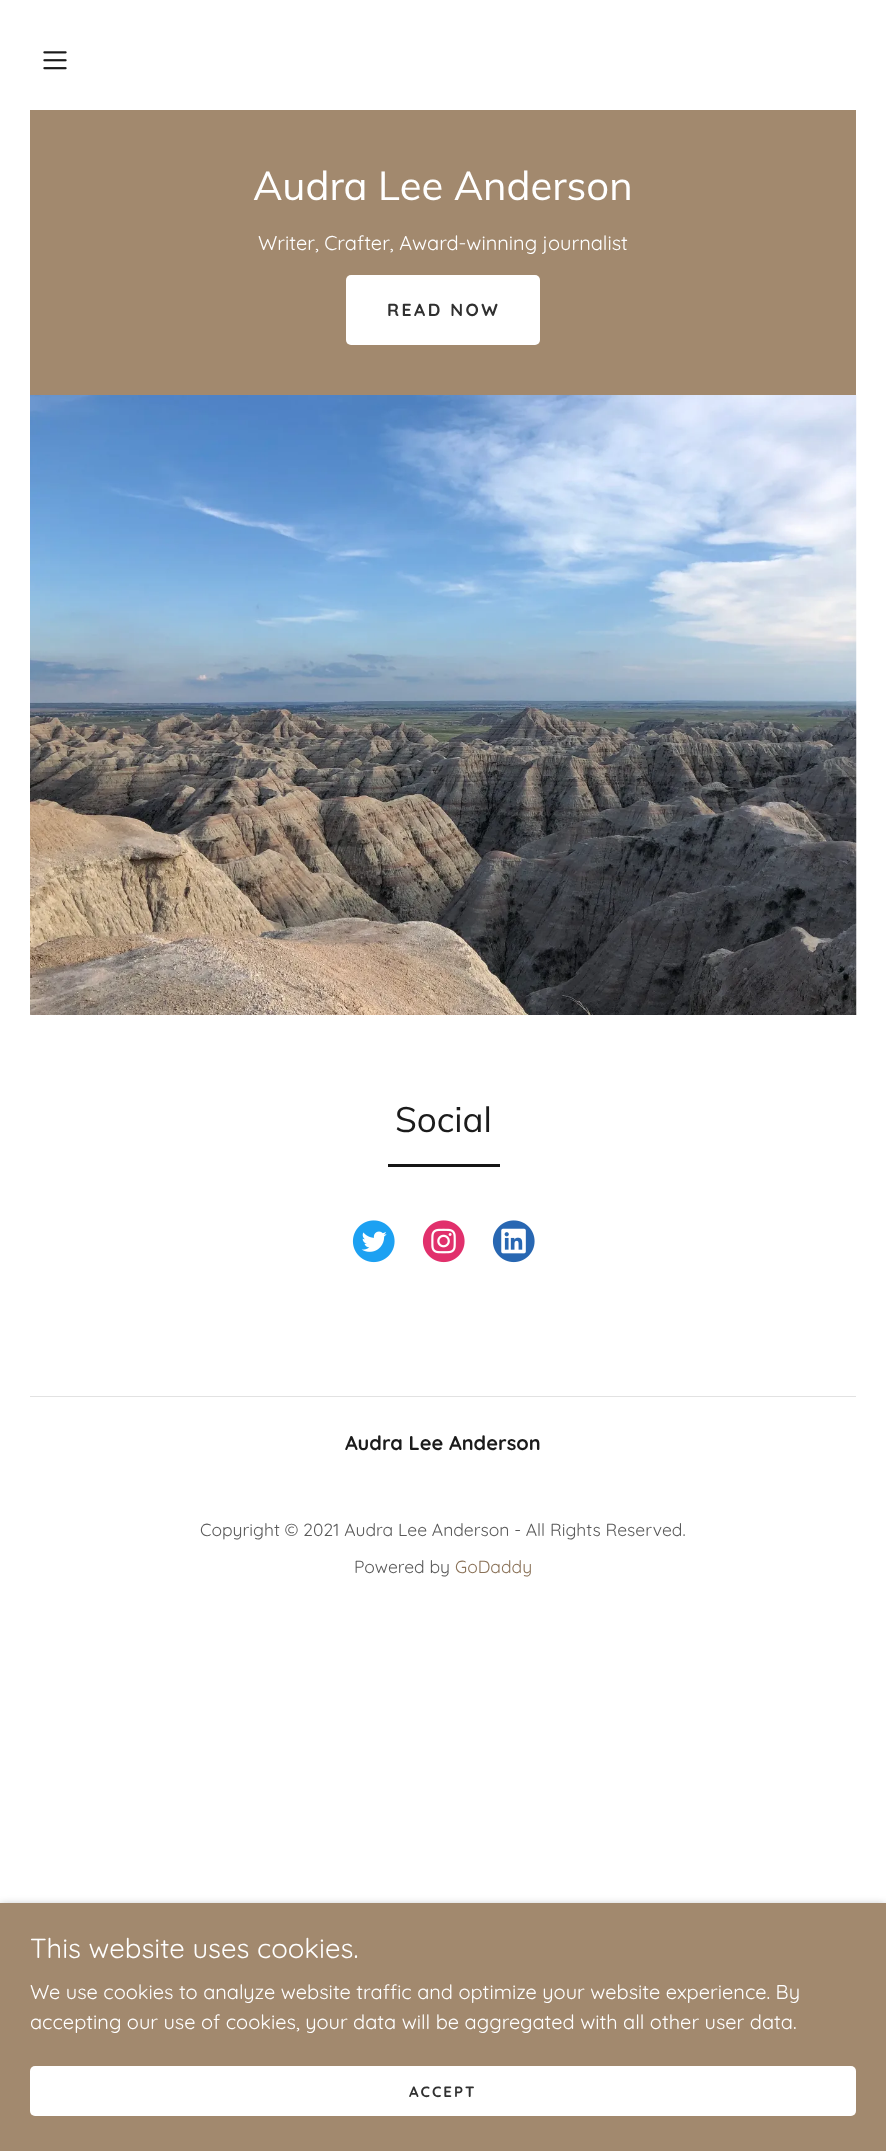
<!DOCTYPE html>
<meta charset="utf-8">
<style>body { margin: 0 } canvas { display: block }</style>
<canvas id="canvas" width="886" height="2151"></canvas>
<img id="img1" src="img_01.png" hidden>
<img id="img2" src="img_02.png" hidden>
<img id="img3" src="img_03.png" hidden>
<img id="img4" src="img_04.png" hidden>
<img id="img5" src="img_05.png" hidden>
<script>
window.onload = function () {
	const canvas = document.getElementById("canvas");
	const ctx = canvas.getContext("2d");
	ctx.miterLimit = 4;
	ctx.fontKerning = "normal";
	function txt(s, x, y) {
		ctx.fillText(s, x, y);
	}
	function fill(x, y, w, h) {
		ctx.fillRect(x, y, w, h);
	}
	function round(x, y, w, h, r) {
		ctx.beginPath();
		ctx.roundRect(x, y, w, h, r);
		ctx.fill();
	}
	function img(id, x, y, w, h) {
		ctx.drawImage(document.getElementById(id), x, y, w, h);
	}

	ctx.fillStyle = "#FFFFFF";
	fill(0, 0, 886, 2151);
	img("img1", 43, 51, 24, 19);
	ctx.fillStyle = "#A2896E";
	fill(30, 110, 826, 285);
	ctx.fillStyle = "#FFFFFF";
	round(346, 275, 194, 70, 5);
	img("img2", 30, 395, 827, 620);
	ctx.fillStyle = "#161616";
	fill(388, 1164, 112, 3);
	img("img3", 352, 1220, 43, 43);
	img("img4", 422, 1220, 43, 43);
	img("img5", 492, 1220, 43, 43);
	ctx.fillStyle = "#E2E2E2";
	fill(30, 1396, 826, 1);
	ctx.fillStyle = "rgba(0, 0, 0, 0.3)";
	ctx.filter = "blur(4px)";
	ctx.beginPath();
	ctx.rect(0, 1905, 886, 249);
	ctx.fill();
	ctx.filter = "none";
	ctx.fillStyle = "#A2896E";
	fill(0, 1903, 886, 248);
	ctx.fillStyle = "#FFFFFF";
	round(30, 2066, 826, 50, 5);
	ctx.font = "40px Muli";
	txt("Audra Lee Anderson", 253, 200);
	ctx.font = "20px Quicksand";
	txt("Writer, Crafter, Award-winning journalist", 258, 250);
	ctx.letterSpacing = "2.5px";
	ctx.font = "bold 17.5px Quicksand";
	ctx.fillStyle = "#303030";
	txt("READ NOW", 387, 316);
	ctx.letterSpacing = "0px";
	ctx.font = "35px Muli";
	ctx.fillStyle = "#1B1B1B";
	txt("Social", 395, 1132);
	ctx.font = "bold 20px Quicksand";
	txt("Audra Lee Anderson", 345, 1450);
	ctx.font = "17.5px Quicksand";
	ctx.fillStyle = "#595959";
	txt("Copyright © 2021 Audra Lee Anderson - All Rights Reserved.", 200, 1536);
	txt("Powered by", 354, 1573);
	ctx.fillStyle = "#8A7258";
	txt("GoDaddy", 455, 1573);
	ctx.font = "27.5px Quicksand";
	ctx.fillStyle = "#FFFFFF";
	txt("This website uses cookies.", 30, 1958);
	ctx.font = "20px Quicksand";
	txt("We use cookies to analyze website traffic and optimize your website experience. By", 30, 1999);
	txt("accepting our use of cookies, your data will be aggregated with all other user data.", 30, 2029);
	ctx.letterSpacing = "2px";
	ctx.font = "bold 15px Quicksand";
	ctx.fillStyle = "#303030";
	txt("ACCEPT", 409, 2097);
};
</script>
